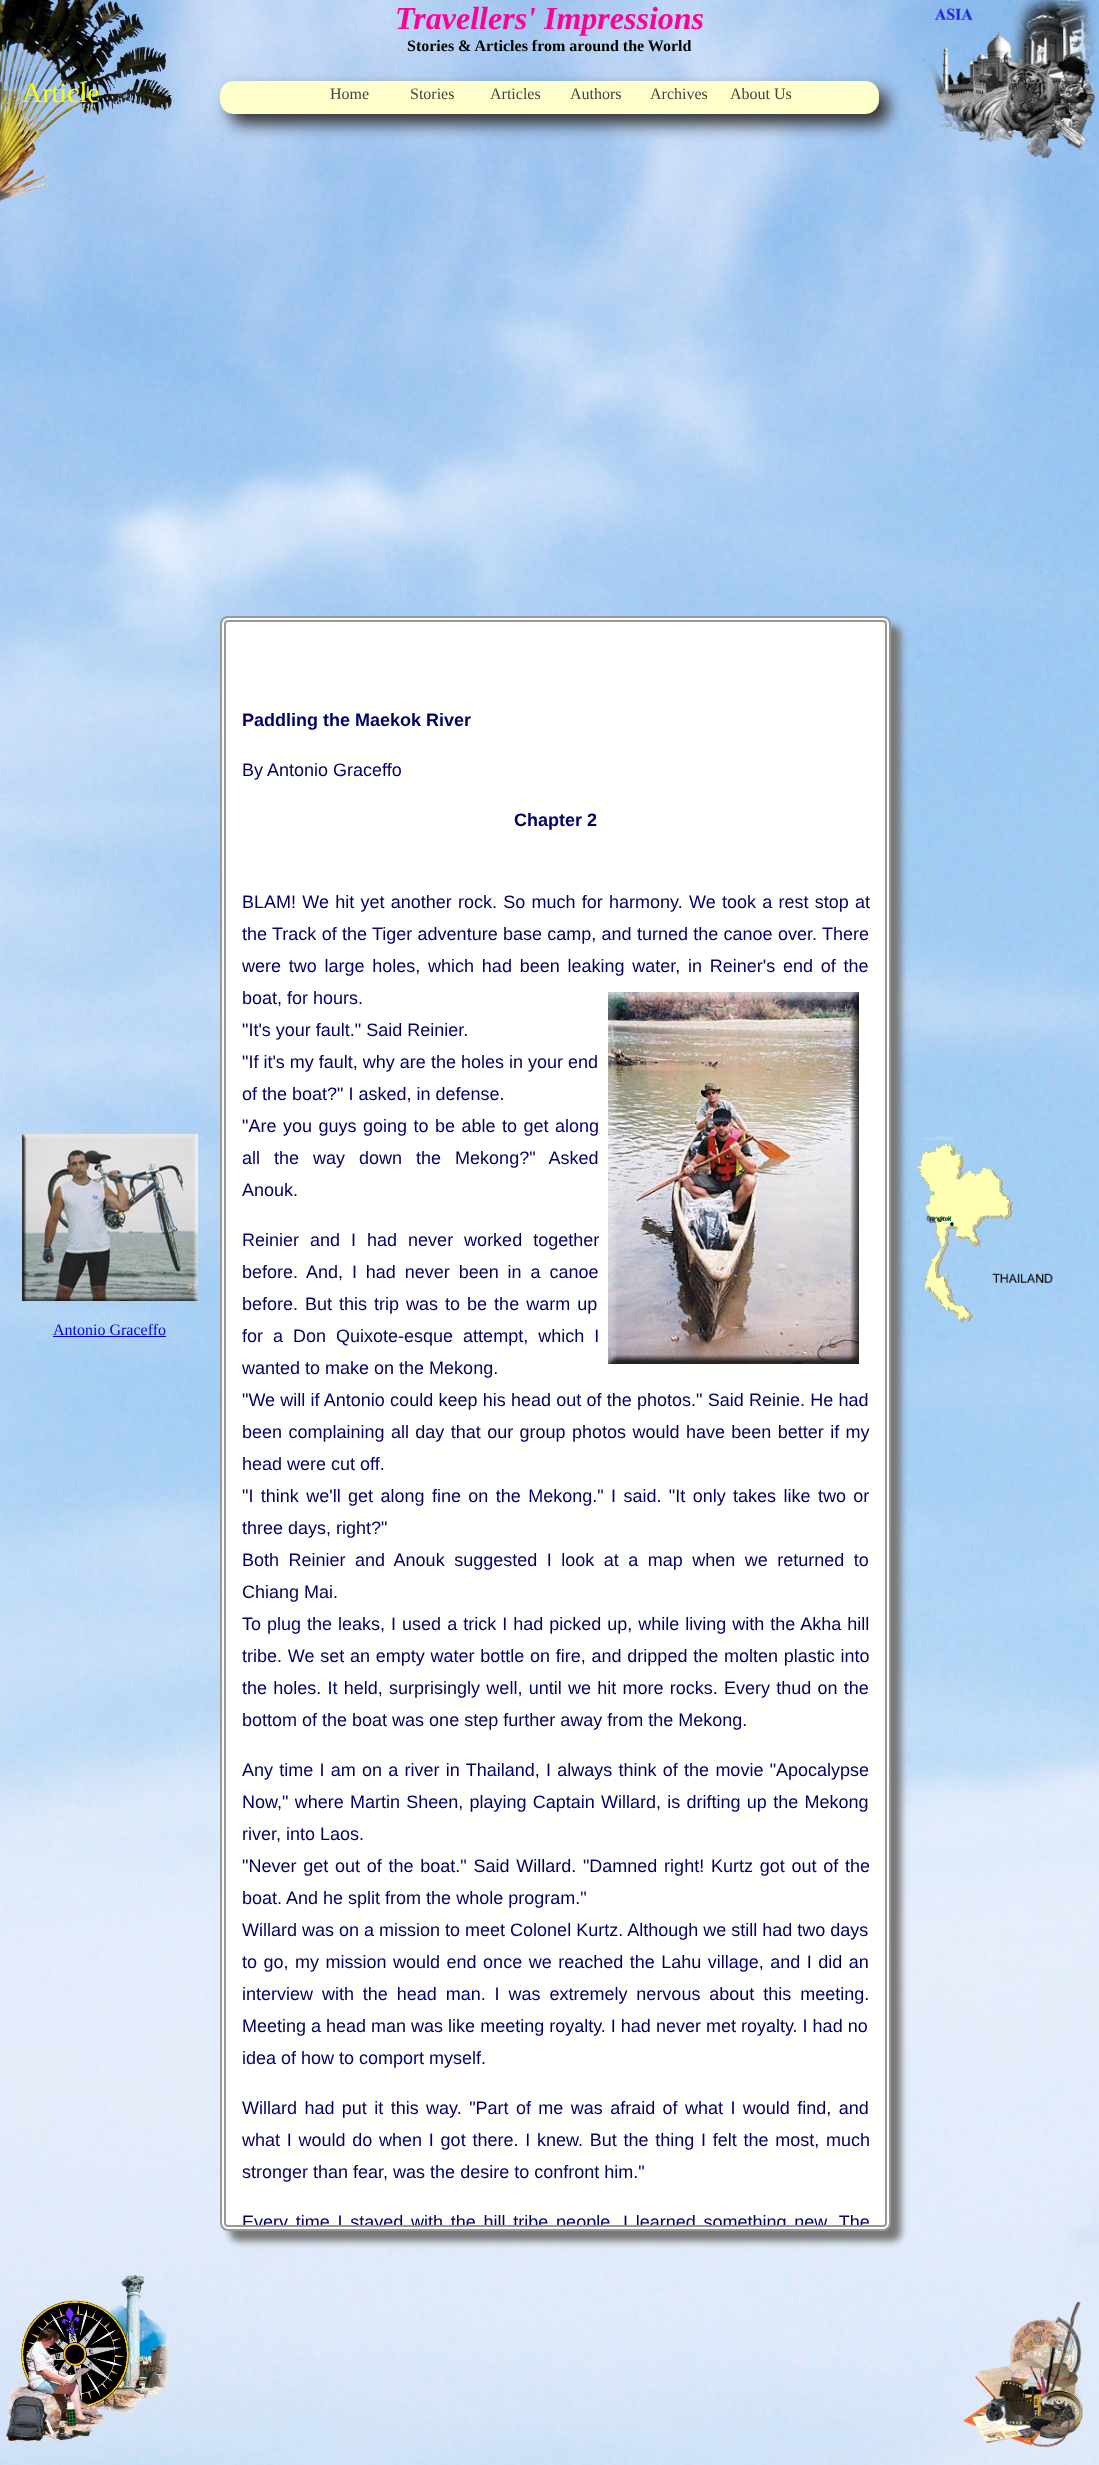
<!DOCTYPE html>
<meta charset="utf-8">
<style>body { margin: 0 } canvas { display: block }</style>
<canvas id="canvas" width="1099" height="2465"></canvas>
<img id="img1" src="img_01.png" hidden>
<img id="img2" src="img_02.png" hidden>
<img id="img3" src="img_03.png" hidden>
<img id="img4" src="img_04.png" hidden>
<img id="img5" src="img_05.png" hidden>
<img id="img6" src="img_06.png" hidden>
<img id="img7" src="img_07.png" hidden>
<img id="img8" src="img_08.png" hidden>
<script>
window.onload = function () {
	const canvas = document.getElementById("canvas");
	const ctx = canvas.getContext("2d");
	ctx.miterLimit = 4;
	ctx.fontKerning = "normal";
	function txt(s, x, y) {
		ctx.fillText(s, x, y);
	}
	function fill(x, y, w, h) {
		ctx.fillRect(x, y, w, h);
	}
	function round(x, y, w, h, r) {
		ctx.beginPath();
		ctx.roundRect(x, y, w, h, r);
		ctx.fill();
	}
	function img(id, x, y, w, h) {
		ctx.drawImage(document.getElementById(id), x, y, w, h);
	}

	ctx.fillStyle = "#FFFFFF";
	fill(0, 0, 1099, 2465);
	img("img1", 0, 0, 1099, 2465);
	img("img2", 0, 0, 174, 202);
	img("img3", 22, 1134, 176, 167);
	ctx.fillStyle = "#0000EE";
	fill(53, 1336, 113, 1);
	img("img4", 6, 2275, 164, 166);
	ctx.fillStyle = "#333333";
	ctx.filter = "blur(8px)";
	ctx.beginPath();
	ctx.roundRect(230, 91, 659, 33, 14);
	ctx.fill();
	ctx.filter = "none";
	ctx.fillStyle = "#FFFFCC";
	round(220, 81, 659, 33, 14);
	ctx.fillStyle = "#777777";
	ctx.filter = "blur(3.5px)";
	ctx.beginPath();
	ctx.roundRect(230, 626, 671, 1615, 8);
	ctx.fill();
	ctx.filter = "none";
	ctx.fillStyle = "#FFFFFD";
	ctx.beginPath();
	ctx.roundRect(221, 617, 669, 1613, 7);
	ctx.fill();
	ctx.strokeStyle = "#999999";
	ctx.lineWidth = 2;
	ctx.stroke();
	ctx.beginPath();
	ctx.roundRect(225, 621, 661, 1605, 3);
	ctx.stroke();
	img("img5", 608, 992, 251, 372);
	img("img6", 923, 0, 173, 158);
	img("img7", 916, 1136, 137, 186);
	img("img8", 963, 2301, 120, 147);
	ctx.font = "16px Liberation Serif";
	ctx.fillStyle = "#0000EE";
	txt("Antonio Graceffo", 53, 1335);
	ctx.font = "italic bold 32px Liberation Serif";
	ctx.fillStyle = "#FF0099";
	txt("Travellers' Impressions", 395, 29);
	ctx.font = "bold 16px Liberation Serif";
	ctx.fillStyle = "#000000";
	txt("Stories & Articles from around the World", 407, 51);
	ctx.font = "16px Liberation Serif";
	ctx.fillStyle = "#444444";
	txt("Home", 330, 99);
	txt("Stories", 410, 99);
	txt("Articles", 490, 99);
	txt("Authors", 570, 99);
	txt("Archives", 650, 99);
	txt("About Us", 730, 99);
	ctx.font = "bold 18px Liberation Sans";
	ctx.fillStyle = "#000066";
	txt("Paddling the Maekok River", 242, 726);
	ctx.font = "18px Liberation Sans";
	txt("By Antonio Graceffo", 242, 776);
	ctx.font = "bold 18px Liberation Sans";
	txt("Chapter 2", 514, 826);
	ctx.wordSpacing = "1.25px";
	ctx.font = "18px Liberation Sans";
	txt("BLAM! We hit yet another rock. So much for harmony. We took a rest stop at", 242, 908);
	ctx.wordSpacing = "0.3px";
	txt("the Track of the Tiger adventure base camp, and turned the canoe over. There", 242, 940);
	ctx.wordSpacing = "2.75px";
	txt("were two large holes, which had been leaking water, in Reiner's end of the", 242, 972);
	ctx.wordSpacing = "0px";
	txt("boat, for hours.", 242, 1004);
	txt("\"It's your fault.\" Said Reinier.", 242, 1036);
	txt("\"If it's my fault, why are the holes in your end", 242, 1068);
	txt("of the boat?\" I asked, in defense.", 242, 1100);
	ctx.wordSpacing = "1.5px";
	txt("\"Are you guys going to be able to get along", 242, 1132);
	ctx.wordSpacing = "9px";
	txt("all the way down the Mekong?\" Asked", 242, 1164);
	ctx.wordSpacing = "0px";
	txt("Anouk.", 242, 1196);
	ctx.wordSpacing = "6px";
	txt("Reinier and I had never worked together", 242, 1246);
	ctx.wordSpacing = "3.9px";
	txt("before. And, I had never been in a canoe", 242, 1278);
	ctx.wordSpacing = "2px";
	txt("before. But this trip was to be the warm up", 242, 1310);
	ctx.wordSpacing = "5px";
	txt("for a Don Quixote-esque attempt, which I", 242, 1342);
	ctx.wordSpacing = "0px";
	txt("wanted to make on the Mekong.", 242, 1374);
	ctx.wordSpacing = "0.25px";
	txt("\"We will if Antonio could keep his head out of the photos.\" Said Reinie. He had", 242, 1406);
	ctx.wordSpacing = "1.4px";
	txt("been complaining all day that our group photos would have been better if my", 242, 1438);
	ctx.wordSpacing = "0px";
	txt("head were cut off.", 242, 1470);
	ctx.wordSpacing = "2.4px";
	txt("\"I think we'll get along fine on the Mekong.\" I said. \"It only takes like two or", 242, 1502);
	ctx.wordSpacing = "0px";
	txt("three days, right?\"", 242, 1534);
	ctx.wordSpacing = "4.5px";
	txt("Both Reinier and Anouk suggested I look at a map when we returned to", 242, 1566);
	ctx.wordSpacing = "0px";
	txt("Chiang Mai.", 242, 1598);
	ctx.wordSpacing = "1px";
	txt("To plug the leaks, I used a trick I had picked up, while living with the Akha hill", 242, 1630);
	ctx.wordSpacing = "0.75px";
	txt("tribe. We set an empty water bottle on fire, and dripped the molten plastic into", 242, 1662);
	ctx.wordSpacing = "1.25px";
	txt("the holes. It held, surprisingly well, until we hit more rocks. Every thud on the", 242, 1694);
	ctx.wordSpacing = "0px";
	txt("bottom of the boat was one step further away from the Mekong.", 242, 1726);
	ctx.wordSpacing = "1.25px";
	txt("Any time I am on a river in Thailand, I always think of the movie \"Apocalypse", 242, 1776);
	txt("Now,\" where Martin Sheen, playing Captain Willard, is drifting up the Mekong", 242, 1808);
	ctx.wordSpacing = "0px";
	txt("river, into Laos.", 242, 1840);
	ctx.wordSpacing = "1.75px";
	txt("\"Never get out of the boat.\" Said Willard. \"Damned right! Kurtz got out of the", 242, 1872);
	ctx.wordSpacing = "0px";
	txt("boat. And he split from the whole program.\"", 242, 1904);
	txt("Willard was on a mission to meet Colonel Kurtz. Although we still had two days", 242, 1936);
	ctx.wordSpacing = "1.5px";
	txt("to go, my mission would end once we reached the Lahu village, and I did an", 242, 1968);
	ctx.wordSpacing = "3.9px";
	txt("interview with the head man. I was extremely nervous about this meeting.", 242, 2000);
	ctx.wordSpacing = "0px";
	txt("Meeting a head man was like meeting royalty. I had never met royalty. I had no", 242, 2032);
	txt("idea of how to comport myself.", 242, 2064);
	ctx.wordSpacing = "2.4px";
	txt("Willard had put it this way. \"Part of me was afraid of what I would find, and", 242, 2114);
	ctx.wordSpacing = "1.75px";
	txt("what I would do when I got there. I knew. But the thing I felt the most, much", 242, 2146);
	ctx.wordSpacing = "0px";
	txt("stronger than fear, was the desire to confront him.\"", 242, 2178);
	ctx.save();
	ctx.beginPath();
	ctx.roundRect(226, 622, 659, 1603, 2);
	ctx.clip();
	ctx.wordSpacing = "2.75px";
	txt("Every time I stayed with the hill tribe people, I learned something new. The", 242, 2228);
	ctx.restore();
	ctx.font = "28px Liberation Serif";
	ctx.fillStyle = "#FFFF00";
	txt("Article", 22, 102);
};
</script>
